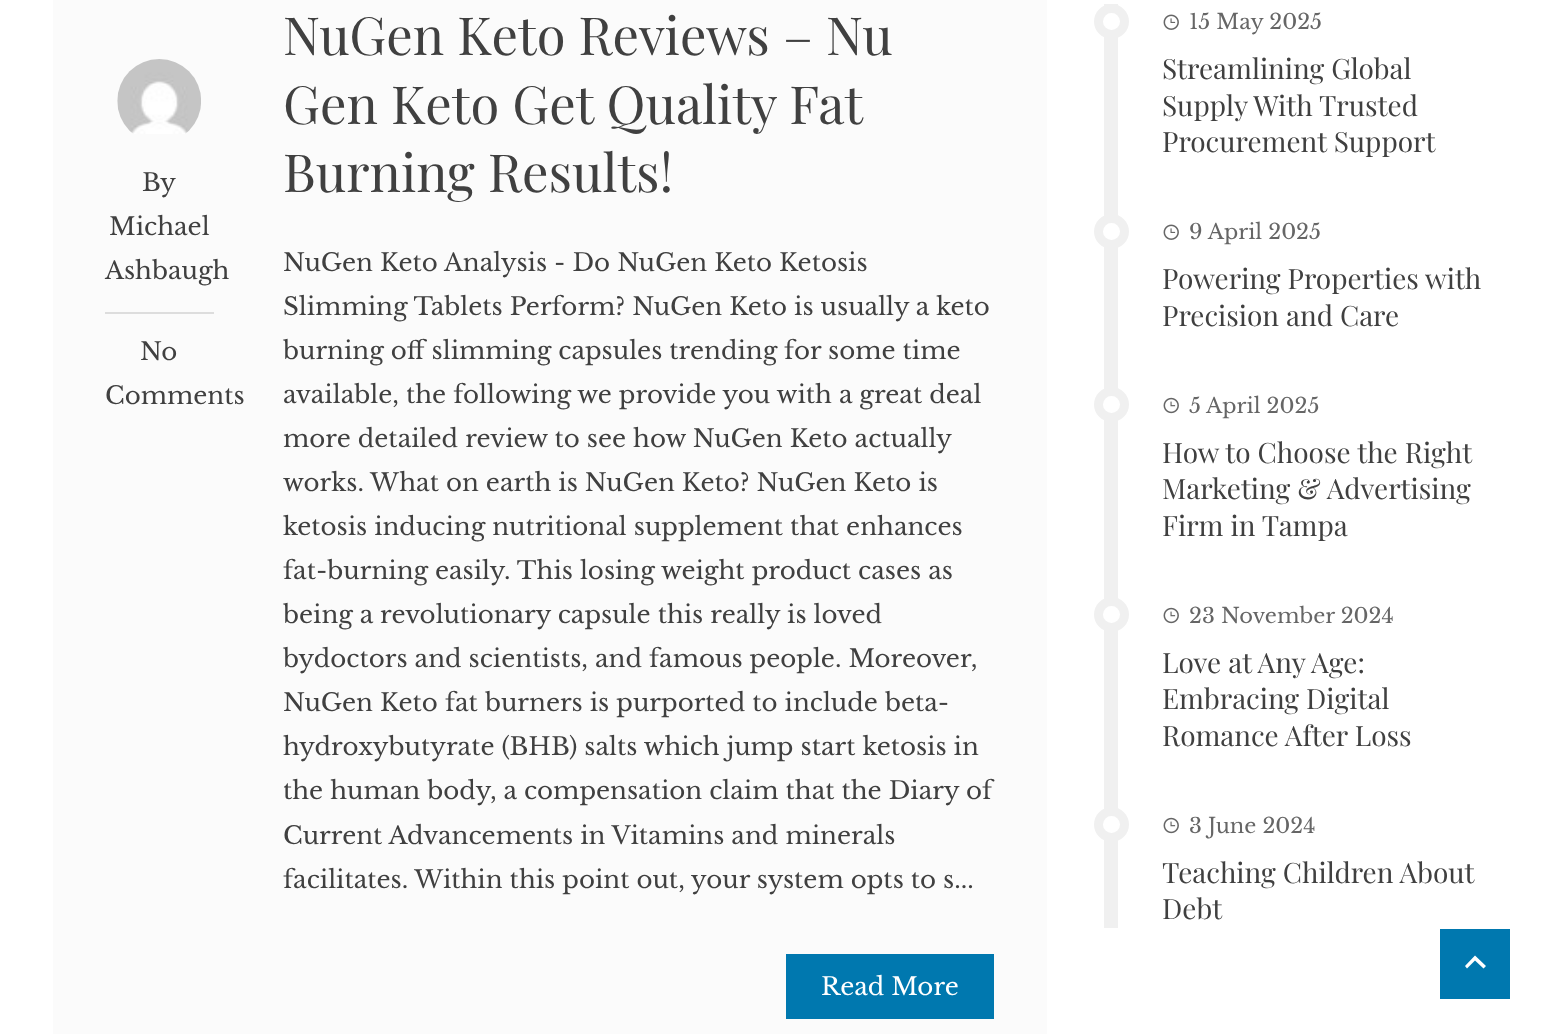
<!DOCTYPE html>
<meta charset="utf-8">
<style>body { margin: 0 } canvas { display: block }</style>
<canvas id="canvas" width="1544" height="1034"></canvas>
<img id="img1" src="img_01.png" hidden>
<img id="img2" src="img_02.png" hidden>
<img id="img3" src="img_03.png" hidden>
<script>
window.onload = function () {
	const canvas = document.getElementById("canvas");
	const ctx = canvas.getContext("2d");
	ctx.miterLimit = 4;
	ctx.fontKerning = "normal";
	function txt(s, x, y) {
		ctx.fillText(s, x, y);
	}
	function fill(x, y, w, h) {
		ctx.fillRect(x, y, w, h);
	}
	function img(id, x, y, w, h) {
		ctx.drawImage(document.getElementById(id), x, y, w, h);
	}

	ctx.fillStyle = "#FFFFFF";
	fill(0, 0, 1544, 1034);
	ctx.fillStyle = "#FBFBFB";
	fill(53, 0, 994, 1034);
	ctx.fillStyle = "#DDDDDD";
	fill(105, 312, 109, 2);
	img("img1", 117, 59, 84, 75);
	ctx.fillStyle = "#0078AF";
	fill(786, 954, 208, 65);
	ctx.fillStyle = "#F0F0F0";
	fill(1104, 4, 14, 924);
	ctx.fillStyle = "#FFFFFF";
	ctx.beginPath();
	ctx.arc(1111.5, 21.5, 13, 0, Math.PI * 2);
	ctx.fill();
	ctx.strokeStyle = "#F0F0F0";
	ctx.lineWidth = 9;
	ctx.stroke();
	img("img2", 1163, 14, 16, 16);
	ctx.beginPath();
	ctx.arc(1111.5, 231.5, 13, 0, Math.PI * 2);
	ctx.fill();
	ctx.stroke();
	img("img2", 1163, 224, 16, 16);
	ctx.beginPath();
	ctx.arc(1111.5, 404.5, 13, 0, Math.PI * 2);
	ctx.fill();
	ctx.stroke();
	img("img3", 1163, 397, 16, 17);
	ctx.beginPath();
	ctx.arc(1111.5, 614.5, 13, 0, Math.PI * 2);
	ctx.fill();
	ctx.stroke();
	img("img3", 1163, 607, 16, 17);
	ctx.beginPath();
	ctx.arc(1111.5, 824.5, 13, 0, Math.PI * 2);
	ctx.fill();
	ctx.stroke();
	img("img3", 1163, 817, 16, 17);
	ctx.fillStyle = "#0078AF";
	fill(1440, 929, 70, 70);
	ctx.fillStyle = "#FFFFFF";
	ctx.beginPath();
	ctx.moveTo(1467, 968.5);
	ctx.lineTo(1475, 960.5);
	ctx.lineTo(1483.5, 968.5);
	ctx.lineTo(1486, 966);
	ctx.lineTo(1475, 955.5);
	ctx.lineTo(1465, 966);
	ctx.closePath();
	ctx.fill();
	ctx.font = "24.5px Libre Baskerville";
	ctx.fillStyle = "#404040";
	txt("By", 142, 191);
	txt("Michael", 109, 235);
	txt("Ashbaugh", 105, 279);
	txt("No", 140, 360);
	txt("Comments", 105, 404);
	ctx.font = "52.5px Playfair Display";
	txt("NuGen Keto Reviews – Nu", 283, 55);
	txt("Gen Keto Get Quality Fat", 283, 124);
	txt("Burning Results!", 283, 192);
	ctx.font = "24.5px Libre Baskerville";
	txt("NuGen Keto Analysis - Do NuGen Keto Ketosis", 283, 271);
	txt("Slimming Tablets Perform? NuGen Keto is usually a keto", 283, 315);
	txt("burning off slimming capsules trending for some time", 283, 359);
	txt("available, the following we provide you with a great deal", 283, 403);
	txt("more detailed review to see how NuGen Keto actually", 283, 447);
	txt("works. What on earth is NuGen Keto? NuGen Keto is", 283, 491);
	txt("ketosis inducing nutritional supplement that enhances", 283, 535);
	txt("fat-burning easily. This losing weight product cases as", 283, 579);
	txt("being a revolutionary capsule this really is loved", 283, 623);
	txt("bydoctors and scientists, and famous people. Moreover,", 283, 667);
	txt("NuGen Keto fat burners is purported to include beta-", 283, 711);
	txt("hydroxybutyrate (BHB) salts which jump start ketosis in", 283, 755);
	txt("the human body, a compensation claim that the Diary of", 283, 799);
	txt("Current Advancements in Vitamins and minerals", 283, 844);
	txt("facilitates. Within this point out, your system opts to s...", 283, 888);
	ctx.fillStyle = "#FFFFFF";
	txt("Read More", 821, 995);
	ctx.font = "21px Libre Baskerville";
	ctx.fillStyle = "#666666";
	txt("15 May 2025", 1189, 29);
	ctx.font = "28px Playfair Display";
	ctx.fillStyle = "#404040";
	txt("Streamlining Global", 1162, 79);
	txt("Supply With Trusted", 1162, 116);
	txt("Procurement Support", 1162, 152);
	ctx.font = "21px Libre Baskerville";
	ctx.fillStyle = "#666666";
	txt("9 April 2025", 1189, 239);
	ctx.font = "28px Playfair Display";
	ctx.fillStyle = "#404040";
	txt("Powering Properties with", 1162, 289);
	txt("Precision and Care", 1162, 326);
	ctx.font = "21px Libre Baskerville";
	ctx.fillStyle = "#666666";
	txt("5 April 2025", 1189, 413);
	ctx.font = "28px Playfair Display";
	ctx.fillStyle = "#404040";
	txt("How to Choose the Right", 1162, 463);
	txt("Marketing & Advertising", 1162, 499);
	txt("Firm in Tampa", 1162, 536);
	ctx.font = "21px Libre Baskerville";
	ctx.fillStyle = "#666666";
	txt("23 November 2024", 1189, 623);
	ctx.font = "28px Playfair Display";
	ctx.fillStyle = "#404040";
	txt("Love at Any Age:", 1162, 673);
	txt("Embracing Digital", 1162, 709);
	txt("Romance After Loss", 1162, 746);
	ctx.font = "21px Libre Baskerville";
	ctx.fillStyle = "#666666";
	txt("3 June 2024", 1189, 833);
	ctx.font = "28px Playfair Display";
	ctx.fillStyle = "#404040";
	txt("Teaching Children About", 1162, 883);
	txt("Debt", 1162, 919);
};
</script>
